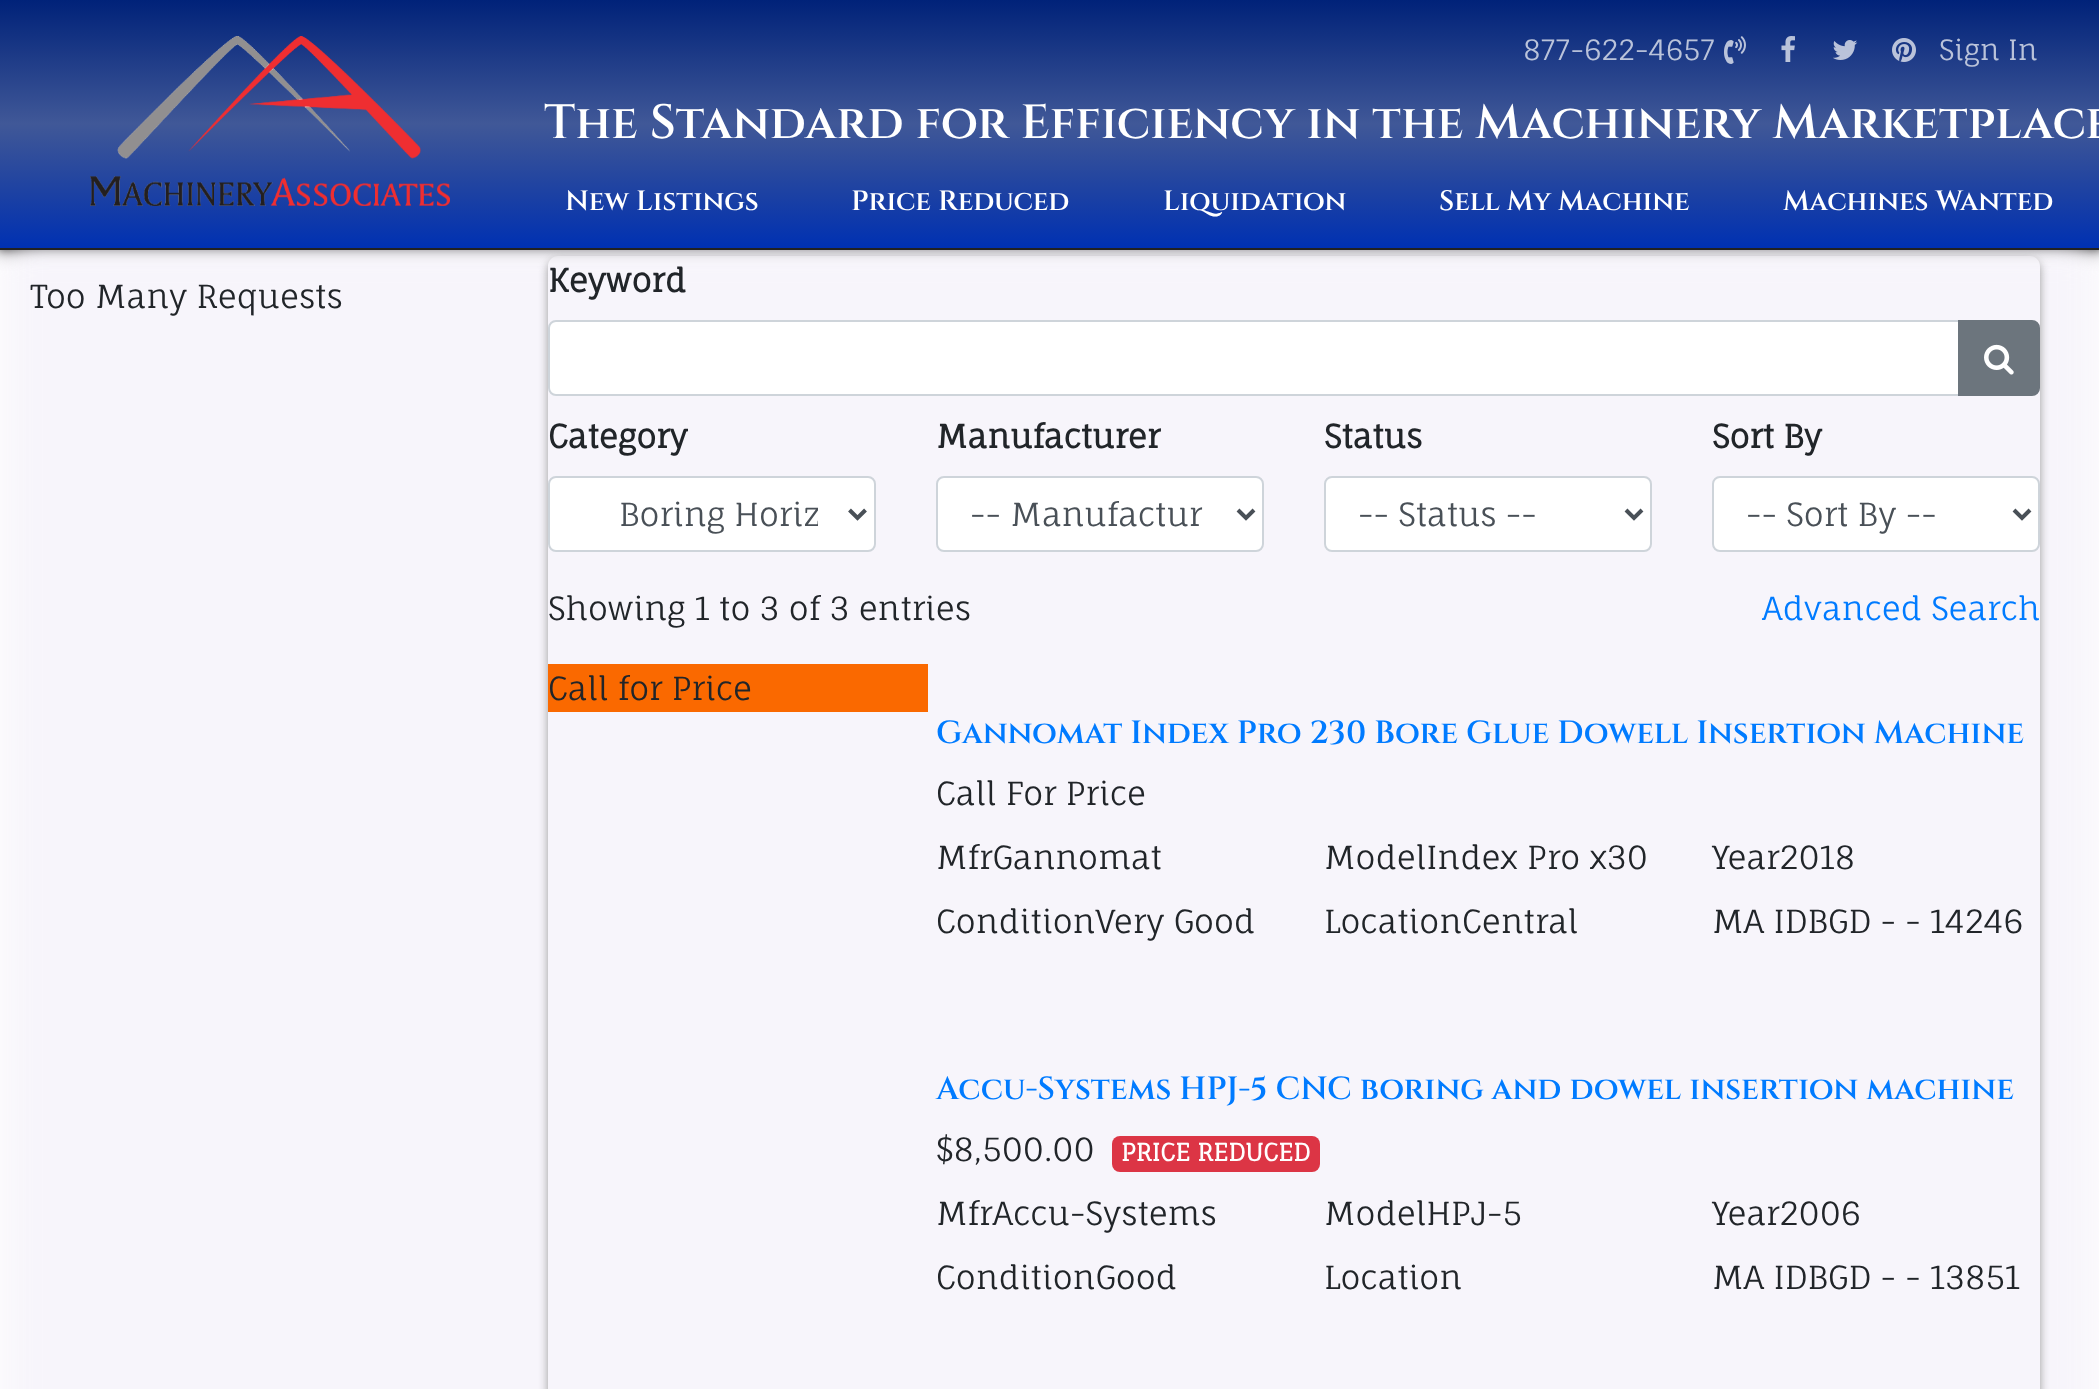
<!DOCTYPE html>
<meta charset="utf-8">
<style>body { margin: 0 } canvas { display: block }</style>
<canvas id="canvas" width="2099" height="1389"></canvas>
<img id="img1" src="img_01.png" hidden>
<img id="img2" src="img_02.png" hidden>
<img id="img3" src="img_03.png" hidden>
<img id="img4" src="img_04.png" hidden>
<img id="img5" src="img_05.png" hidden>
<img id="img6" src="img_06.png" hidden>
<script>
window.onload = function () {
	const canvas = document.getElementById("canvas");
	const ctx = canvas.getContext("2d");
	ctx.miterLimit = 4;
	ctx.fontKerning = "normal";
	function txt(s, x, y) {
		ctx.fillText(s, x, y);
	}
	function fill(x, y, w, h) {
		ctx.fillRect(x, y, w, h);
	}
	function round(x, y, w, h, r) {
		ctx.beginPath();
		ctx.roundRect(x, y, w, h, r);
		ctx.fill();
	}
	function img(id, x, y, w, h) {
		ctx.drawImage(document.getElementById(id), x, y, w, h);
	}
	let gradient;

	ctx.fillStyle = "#FFFFFF";
	fill(0, 0, 2099, 1389);
	ctx.save();
	ctx.beginPath();
	ctx.rect(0, 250, 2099, 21);
	ctx.clip();
	ctx.fillStyle = "#000000";
	ctx.filter = "blur(10px)";
	ctx.beginPath();
	ctx.rect(0, 0, 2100, 250);
	ctx.fill();
	ctx.filter = "none";
	ctx.restore();
	ctx.save();
	ctx.beginPath();
	ctx.rect(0, 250, 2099, 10);
	ctx.clip();
	ctx.fillStyle = "#000000";
	ctx.filter = "blur(5px)";
	ctx.beginPath();
	ctx.rect(0, 0, 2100, 250);
	ctx.fill();
	ctx.filter = "none";
	ctx.restore();
	ctx.fillStyle = "#F7F5FB";
	ctx.filter = "blur(20px)";
	ctx.beginPath();
	ctx.rect(0, 240, 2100, 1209);
	ctx.fill();
	ctx.filter = "none";
	ctx.save();
	ctx.beginPath();
	ctx.moveTo(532, 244);
	ctx.lineTo(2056, 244);
	ctx.lineTo(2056, 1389);
	ctx.lineTo(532, 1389);
	ctx.closePath();
	ctx.moveTo(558, 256);
	ctx.lineTo(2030, 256);
	ctx.bezierCurveTo(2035.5, 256, 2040, 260.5, 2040, 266);
	ctx.lineTo(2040, 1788);
	ctx.bezierCurveTo(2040, 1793.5, 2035.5, 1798, 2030, 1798);
	ctx.lineTo(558, 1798);
	ctx.bezierCurveTo(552.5, 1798, 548, 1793.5, 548, 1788);
	ctx.lineTo(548, 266);
	ctx.bezierCurveTo(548, 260.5, 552.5, 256, 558, 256);
	ctx.closePath();
	ctx.clip("evenodd");
	ctx.fillStyle = "#999999";
	ctx.filter = "blur(5px)";
	ctx.beginPath();
	ctx.roundRect(548, 260, 1492, 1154, 10);
	ctx.fill();
	ctx.filter = "none";
	ctx.restore();
	gradient = ctx.createLinearGradient(1050, 0, 1050, 248);
	gradient.addColorStop(0, "#002279");
	gradient.addColorStop(0.5, "rgba(0, 32, 117, 0.75)");
	gradient.addColorStop(1, "#0031B3");
	ctx.fillStyle = gradient;
	fill(0, 0, 2099, 248);
	ctx.fillStyle = "#222222";
	fill(0, 248, 2099, 2);
	img("img1", 90, 36, 360, 170);
	img("img2", 1724, 36, 22, 28);
	img("img3", 1781, 36, 14, 26);
	img("img4", 1833, 40, 25, 20);
	img("img5", 1892, 38, 24, 24);
	ctx.fillStyle = "#FFFFFF";
	ctx.beginPath();
	ctx.roundRect(549, 321, 1410, 74, [7, 0, 0, 7]);
	ctx.fill();
	ctx.strokeStyle = "#CED4DA";
	ctx.lineWidth = 2;
	ctx.stroke();
	ctx.fillStyle = "#6C757D";
	ctx.beginPath();
	ctx.roundRect(1959, 321, 80, 74, [0, 7, 7, 0]);
	ctx.fill();
	ctx.strokeStyle = "#6C757D";
	ctx.stroke();
	img("img6", 1984, 344, 30, 31);
	ctx.fillStyle = "#FFFFFF";
	ctx.beginPath();
	ctx.roundRect(549, 477, 326, 74, 7);
	ctx.fill();
	ctx.strokeStyle = "#CED4DA";
	ctx.stroke();
	ctx.beginPath();
	ctx.moveTo(849.5, 510);
	ctx.lineTo(857.5, 518);
	ctx.lineTo(865.5, 510);
	ctx.strokeStyle = "#495057";
	ctx.lineWidth = 4;
	ctx.stroke();
	ctx.beginPath();
	ctx.roundRect(937, 477, 326, 74, 7);
	ctx.fill();
	ctx.strokeStyle = "#CED4DA";
	ctx.lineWidth = 2;
	ctx.stroke();
	ctx.beginPath();
	ctx.moveTo(1238, 510);
	ctx.lineTo(1246, 518);
	ctx.lineTo(1254, 510);
	ctx.strokeStyle = "#495057";
	ctx.lineWidth = 4;
	ctx.stroke();
	ctx.beginPath();
	ctx.roundRect(1325, 477, 326, 74, 7);
	ctx.fill();
	ctx.strokeStyle = "#CED4DA";
	ctx.lineWidth = 2;
	ctx.stroke();
	ctx.beginPath();
	ctx.moveTo(1626, 510);
	ctx.lineTo(1634, 518);
	ctx.lineTo(1642, 510);
	ctx.strokeStyle = "#495057";
	ctx.lineWidth = 4;
	ctx.stroke();
	ctx.beginPath();
	ctx.roundRect(1713, 477, 326, 74, 7);
	ctx.fill();
	ctx.strokeStyle = "#CED4DA";
	ctx.lineWidth = 2;
	ctx.stroke();
	ctx.beginPath();
	ctx.moveTo(2014, 510);
	ctx.lineTo(2022, 518);
	ctx.lineTo(2030, 510);
	ctx.strokeStyle = "#495057";
	ctx.lineWidth = 4;
	ctx.stroke();
	ctx.fillStyle = "#FA6900";
	fill(548, 664, 380, 48);
	ctx.fillStyle = "#DC3545";
	round(1112, 1136, 208, 36, 8);
	ctx.font = "28px Fauna One";
	ctx.fillStyle = "#BAC3DA";
	txt("877-622-4657", 1523, 60);
	txt("Sign In", 1939, 60);
	ctx.font = "600 48px Cinzel";
	ctx.fillStyle = "#FFFFFF";
	txt("The Standard for Efficiency in the Machinery Marketplace", 544, 138);
	ctx.font = "600 28px Cinzel";
	txt("New Listings", 565, 210);
	txt("Price Reduced", 851, 210);
	txt("Liquidation", 1163, 210);
	txt("Sell My Machine", 1439, 210);
	txt("Machines Wanted", 1783, 210);
	ctx.font = "32px Fauna One";
	ctx.fillStyle = "#212529";
	txt("Too Many Requests", 30, 308);
	ctx.font = "bold 32px Fauna One";
	txt("Keyword", 548, 292);
	txt("Category", 548, 448);
	ctx.save();
	ctx.beginPath();
	ctx.rect(582, 492, 236, 44);
	ctx.clip();
	ctx.font = "32px Fauna One";
	ctx.fillStyle = "#495057";
	txt("Boring Horiz", 619, 526);
	ctx.restore();
	txt("Manufacturer", 936, 448);
	ctx.font = "32px Fauna One";
	ctx.fillStyle = "#495057";
	txt("-- Manufactur", 970, 526);
	ctx.font = "bold 32px Fauna One";
	ctx.fillStyle = "#212529";
	txt("Status", 1324, 448);
	ctx.font = "32px Fauna One";
	ctx.fillStyle = "#495057";
	txt("-- Status --", 1358, 526);
	ctx.font = "bold 32px Fauna One";
	ctx.fillStyle = "#212529";
	txt("Sort By", 1712, 448);
	ctx.font = "32px Fauna One";
	ctx.fillStyle = "#495057";
	txt("-- Sort By --", 1746, 526);
	ctx.fillStyle = "#212529";
	txt("Showing 1 to 3 of 3 entries", 548, 620);
	ctx.fillStyle = "#007BFF";
	txt("Advanced Search", 1762, 620);
	ctx.fillStyle = "#212529";
	txt("Call for Price", 548, 700);
	ctx.font = "600 32px Cinzel";
	ctx.fillStyle = "#007BFF";
	txt("Gannomat Index Pro 230 Bore Glue Dowell Insertion Machine", 936, 743);
	ctx.font = "32px Fauna One";
	ctx.fillStyle = "#212529";
	txt("Call For Price", 936, 805);
	txt("MfrGannomat", 936, 869);
	txt("ModelIndex Pro x30", 1324, 869);
	txt("Year2018", 1712, 869);
	txt("ConditionVery Good", 936, 933);
	txt("LocationCentral", 1324, 933);
	txt("MA IDBGD - - 14246", 1712, 933);
	ctx.font = "600 32px Cinzel";
	ctx.fillStyle = "#007BFF";
	txt("Accu-Systems HPJ-5 CNC boring and dowel insertion machine", 936, 1099);
	ctx.font = "32px Fauna One";
	ctx.fillStyle = "#212529";
	txt("$8,500.00", 936, 1161);
	ctx.font = "bold 24px Fauna One";
	ctx.fillStyle = "#FFFFFF";
	txt("PRICE REDUCED", 1121, 1161);
	ctx.font = "32px Fauna One";
	ctx.fillStyle = "#212529";
	txt("MfrAccu-Systems", 936, 1225);
	txt("ModelHPJ-5", 1324, 1225);
	txt("Year2006", 1712, 1225);
	txt("ConditionGood", 936, 1289);
	txt("Location", 1324, 1289);
	txt("MA IDBGD - - 13851", 1712, 1289);
};
</script>
